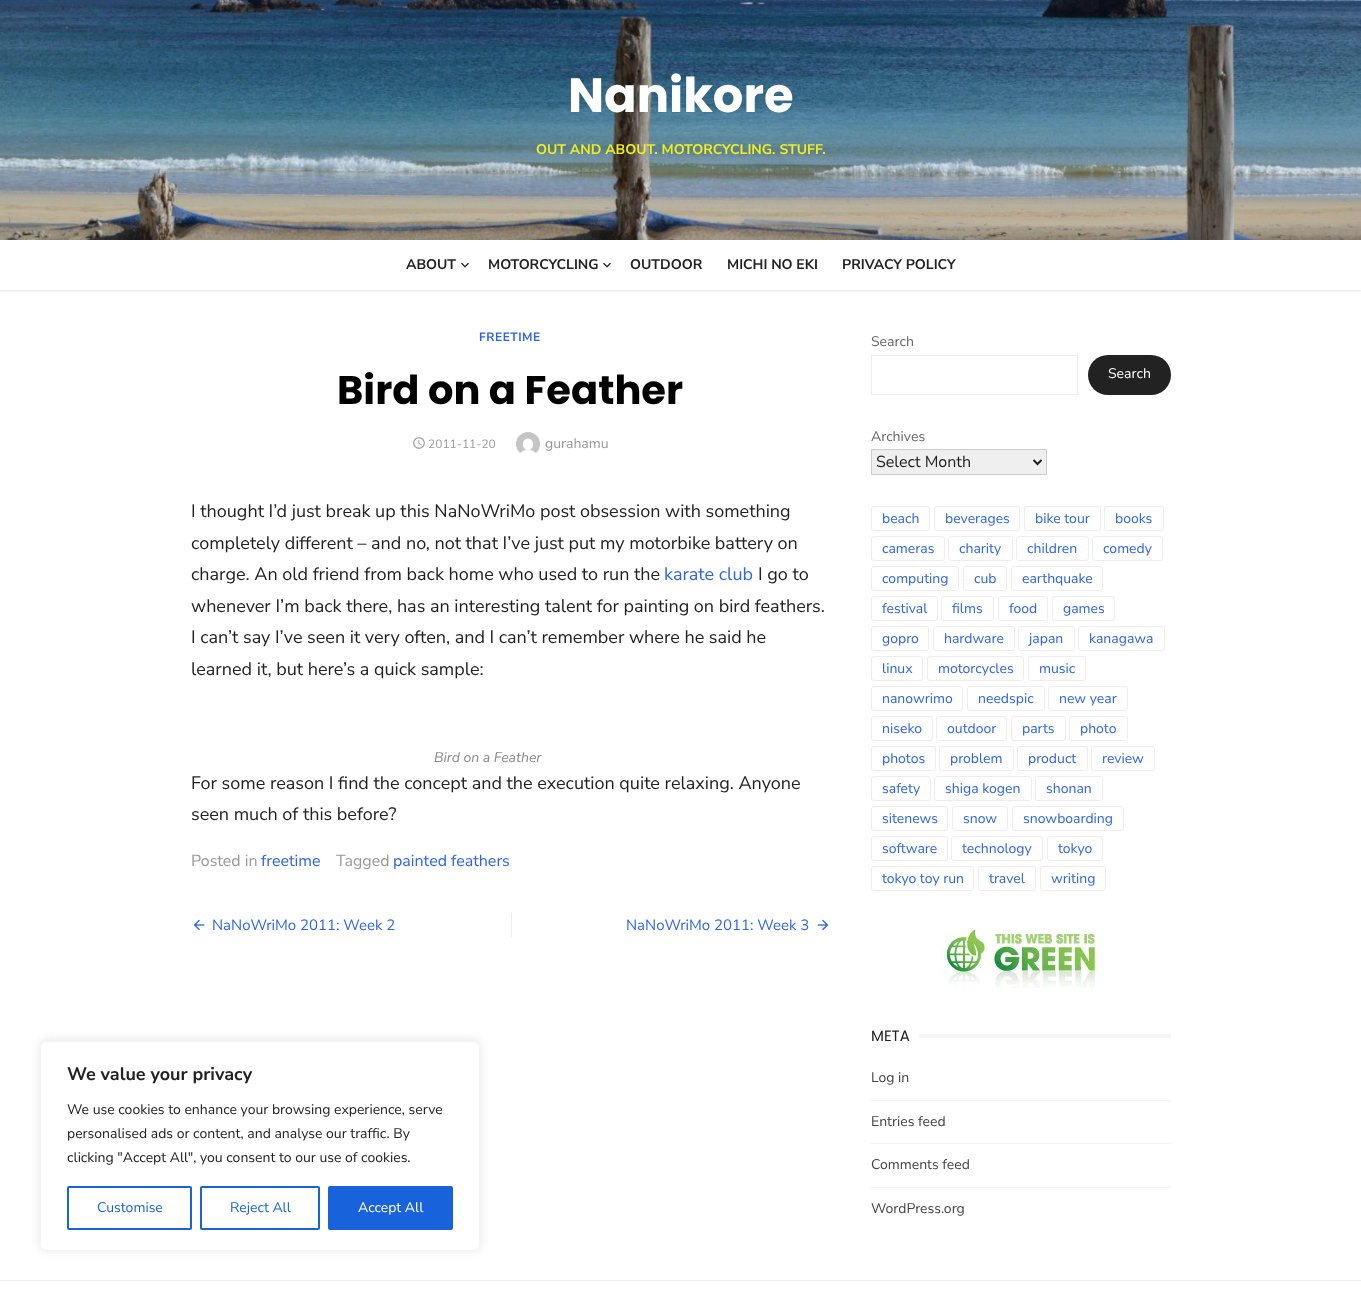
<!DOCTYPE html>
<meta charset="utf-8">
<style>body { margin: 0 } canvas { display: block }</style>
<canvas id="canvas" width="1361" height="1291"></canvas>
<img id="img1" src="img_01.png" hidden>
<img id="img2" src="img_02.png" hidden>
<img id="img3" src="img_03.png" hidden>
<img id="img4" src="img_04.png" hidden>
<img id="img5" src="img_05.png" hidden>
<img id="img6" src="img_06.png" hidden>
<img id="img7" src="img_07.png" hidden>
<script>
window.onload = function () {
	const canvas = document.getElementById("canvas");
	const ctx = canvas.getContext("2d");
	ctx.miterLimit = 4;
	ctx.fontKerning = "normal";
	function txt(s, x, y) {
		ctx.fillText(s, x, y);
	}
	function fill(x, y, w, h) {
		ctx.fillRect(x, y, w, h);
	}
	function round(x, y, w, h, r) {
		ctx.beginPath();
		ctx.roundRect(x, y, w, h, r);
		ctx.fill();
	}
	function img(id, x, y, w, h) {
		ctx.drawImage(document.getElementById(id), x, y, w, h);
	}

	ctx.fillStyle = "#FFFFFF";
	fill(0, 0, 1361, 1291);
	ctx.save();
	ctx.beginPath();
	ctx.rect(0, 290, 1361, 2);
	ctx.clip();
	ctx.fillStyle = "rgba(0, 0, 0, 0.1)";
	ctx.filter = "blur(1px)";
	ctx.beginPath();
	ctx.rect(0, 241, 1361, 50);
	ctx.fill();
	ctx.filter = "none";
	ctx.restore();
	img("img1", 0, 0, 1361, 240);
	img("img2", 461, 262, 8, 6);
	img("img2", 603, 262, 8, 6);
	img("img3", 413, 437, 12, 12);
	img("img4", 516, 432, 24, 22);
	ctx.fillStyle = "#EEEEEE";
	fill(511, 913, 1, 24);
	img("img5", 193, 919, 12, 12);
	img("img6", 817, 919, 12, 12);
	ctx.strokeStyle = "#EEEEEE";
	ctx.strokeRect(871.5, 355.5, 206, 39);
	ctx.fillStyle = "#222222";
	round(1088, 355, 83, 40, 20);
	ctx.fillStyle = "#EFEFEF";
	ctx.beginPath();
	ctx.rect(871.5, 449.5, 175, 25);
	ctx.fill();
	ctx.strokeStyle = "#CCCCCC";
	ctx.stroke();
	ctx.beginPath();
	ctx.moveTo(1033.5, 460);
	ctx.lineTo(1037.5, 464);
	ctx.lineTo(1041.5, 460);
	ctx.strokeStyle = "#222222";
	ctx.lineWidth = 2;
	ctx.stroke();
	ctx.beginPath();
	ctx.roundRect(871.5, 506.5, 58, 24, 2.5);
	ctx.strokeStyle = "#EDEDED";
	ctx.lineWidth = 1;
	ctx.stroke();
	ctx.beginPath();
	ctx.roundRect(934.5, 506.5, 85, 24, 2.5);
	ctx.stroke();
	ctx.beginPath();
	ctx.roundRect(1024.5, 506.5, 76, 24, 2.5);
	ctx.stroke();
	ctx.beginPath();
	ctx.roundRect(1104.5, 506.5, 59, 24, 2.5);
	ctx.stroke();
	ctx.beginPath();
	ctx.roundRect(871.5, 536.5, 73, 24, 2.5);
	ctx.stroke();
	ctx.beginPath();
	ctx.roundRect(948.5, 536.5, 64, 24, 2.5);
	ctx.stroke();
	ctx.beginPath();
	ctx.roundRect(1016.5, 536.5, 72, 24, 2.5);
	ctx.stroke();
	ctx.beginPath();
	ctx.roundRect(1092.5, 536.5, 70, 24, 2.5);
	ctx.stroke();
	ctx.beginPath();
	ctx.roundRect(871.5, 566.5, 87, 24, 2.5);
	ctx.stroke();
	ctx.beginPath();
	ctx.roundRect(963.5, 566.5, 43, 24, 2.5);
	ctx.stroke();
	ctx.beginPath();
	ctx.roundRect(1011.5, 566.5, 91, 24, 2.5);
	ctx.stroke();
	ctx.beginPath();
	ctx.roundRect(871.5, 596.5, 66, 24, 2.5);
	ctx.stroke();
	ctx.beginPath();
	ctx.roundRect(941.5, 596.5, 52, 24, 2.5);
	ctx.stroke();
	ctx.beginPath();
	ctx.roundRect(998.5, 596.5, 49, 24, 2.5);
	ctx.stroke();
	ctx.beginPath();
	ctx.roundRect(1052.5, 596.5, 62, 24, 2.5);
	ctx.stroke();
	ctx.beginPath();
	ctx.roundRect(871.5, 626.5, 57, 24, 2.5);
	ctx.stroke();
	ctx.beginPath();
	ctx.roundRect(933.5, 626.5, 81, 24, 2.5);
	ctx.stroke();
	ctx.beginPath();
	ctx.roundRect(1018.5, 626.5, 56, 24, 2.5);
	ctx.stroke();
	ctx.beginPath();
	ctx.roundRect(1078.5, 626.5, 86, 24, 2.5);
	ctx.stroke();
	ctx.beginPath();
	ctx.roundRect(871.5, 656.5, 51, 24, 2.5);
	ctx.stroke();
	ctx.beginPath();
	ctx.roundRect(927.5, 656.5, 96, 24, 2.5);
	ctx.stroke();
	ctx.beginPath();
	ctx.roundRect(1028.5, 656.5, 57, 24, 2.5);
	ctx.stroke();
	ctx.beginPath();
	ctx.roundRect(871.5, 686.5, 91, 24, 2.5);
	ctx.stroke();
	ctx.beginPath();
	ctx.roundRect(967.5, 686.5, 77, 24, 2.5);
	ctx.stroke();
	ctx.beginPath();
	ctx.roundRect(1048.5, 686.5, 79, 24, 2.5);
	ctx.stroke();
	ctx.beginPath();
	ctx.roundRect(871.5, 716.5, 61, 24, 2.5);
	ctx.stroke();
	ctx.beginPath();
	ctx.roundRect(936.5, 716.5, 70, 24, 2.5);
	ctx.stroke();
	ctx.beginPath();
	ctx.roundRect(1011.5, 716.5, 54, 24, 2.5);
	ctx.stroke();
	ctx.beginPath();
	ctx.roundRect(1069.5, 716.5, 58, 24, 2.5);
	ctx.stroke();
	ctx.beginPath();
	ctx.roundRect(871.5, 746.5, 64, 24, 2.5);
	ctx.stroke();
	ctx.beginPath();
	ctx.roundRect(939.5, 746.5, 74, 24, 2.5);
	ctx.stroke();
	ctx.beginPath();
	ctx.roundRect(1017.5, 746.5, 70, 24, 2.5);
	ctx.stroke();
	ctx.beginPath();
	ctx.roundRect(1091.5, 746.5, 63, 24, 2.5);
	ctx.stroke();
	ctx.beginPath();
	ctx.roundRect(871.5, 776.5, 59, 24, 2.5);
	ctx.stroke();
	ctx.beginPath();
	ctx.roundRect(934.5, 776.5, 97, 24, 2.5);
	ctx.stroke();
	ctx.beginPath();
	ctx.roundRect(1035.5, 776.5, 67, 24, 2.5);
	ctx.stroke();
	ctx.beginPath();
	ctx.roundRect(871.5, 806.5, 76, 24, 2.5);
	ctx.stroke();
	ctx.beginPath();
	ctx.roundRect(952.5, 806.5, 55, 24, 2.5);
	ctx.stroke();
	ctx.beginPath();
	ctx.roundRect(1012.5, 806.5, 111, 24, 2.5);
	ctx.stroke();
	ctx.beginPath();
	ctx.roundRect(871.5, 836.5, 76, 24, 2.5);
	ctx.stroke();
	ctx.beginPath();
	ctx.roundRect(951.5, 836.5, 91, 24, 2.5);
	ctx.stroke();
	ctx.beginPath();
	ctx.roundRect(1047.5, 836.5, 55, 24, 2.5);
	ctx.stroke();
	ctx.beginPath();
	ctx.roundRect(871.5, 866.5, 102, 24, 2.5);
	ctx.stroke();
	ctx.beginPath();
	ctx.roundRect(978.5, 866.5, 57, 24, 2.5);
	ctx.stroke();
	ctx.beginPath();
	ctx.roundRect(1040.5, 866.5, 65, 24, 2.5);
	ctx.stroke();
	img("img7", 940, 929, 160, 59);
	ctx.fillStyle = "#F5F5F5";
	fill(919, 1034, 252, 4);
	ctx.fillStyle = "#F2F2F2";
	fill(871, 1100, 300, 1);
	fill(871, 1143, 300, 1);
	fill(871, 1187, 300, 1);
	ctx.fillStyle = "#EEEEEE";
	fill(0, 1280, 1361, 1);
	ctx.fillStyle = "rgba(172, 171, 171, 0.3)";
	ctx.filter = "blur(5px)";
	ctx.beginPath();
	ctx.roundRect(40, 1040, 440, 210, 6);
	ctx.fill();
	ctx.filter = "none";
	ctx.fillStyle = "#FFFFFF";
	ctx.beginPath();
	ctx.roundRect(40.5, 1041.5, 439, 209, 5.5);
	ctx.fill();
	ctx.strokeStyle = "#F4F4F4";
	ctx.stroke();
	ctx.beginPath();
	ctx.roundRect(68, 1187, 123, 42, 1);
	ctx.strokeStyle = "#1863DC";
	ctx.lineWidth = 2;
	ctx.stroke();
	ctx.beginPath();
	ctx.roundRect(201, 1187, 118, 42, 1);
	ctx.stroke();
	ctx.fillStyle = "#1863DC";
	ctx.beginPath();
	ctx.roundRect(329, 1187, 123, 42, 1);
	ctx.fill();
	ctx.stroke();
	ctx.font = "bold 48px Poppins";
	ctx.fillStyle = "#FFFFFF";
	txt("Nanikore", 568, 112);
	ctx.font = "bold 14px Nunito Sans";
	ctx.fillStyle = "#EEEE22";
	txt("OUT AND ABOUT. MOTORCYCLING. STUFF.", 536, 154);
	ctx.fillStyle = "#222222";
	txt("ABOUT", 406, 269);
	txt("MOTORCYCLING", 488, 269);
	txt("OUTDOOR", 630, 269);
	txt("MICHI NO EKI", 727, 269);
	txt("PRIVACY POLICY", 842, 269);
	ctx.letterSpacing = "0.5px";
	ctx.font = "bold 12px Nunito Sans";
	ctx.fillStyle = "#2E64E6";
	txt("FREETIME", 479, 341);
	ctx.letterSpacing = "0px";
	ctx.font = "bold 40px Poppins";
	ctx.fillStyle = "#000000";
	txt("Bird on a Feather", 337, 404);
	ctx.font = "12px Nunito Sans";
	ctx.fillStyle = "#999999";
	txt("2011-11-20", 428, 448);
	ctx.font = "14px Nunito Sans";
	txt("gurahamu", 545, 448);
	ctx.font = "18px Nunito Sans";
	ctx.fillStyle = "#222222";
	txt("I thought I’d just break up this NaNoWriMo post obsession with something", 191, 517);
	txt("completely different – and no, not that I’ve just put my motorbike battery on", 191, 549);
	txt("charge. An old friend from back home who used to run the", 191, 580);
	ctx.fillStyle = "#2E64E6";
	txt("karate club", 664, 580);
	ctx.fillStyle = "#222222";
	txt("I go to", 758, 580);
	txt("whenever I’m back there, has an interesting talent for painting on bird feathers.", 191, 612);
	txt("I can’t say I’ve seen it very often, and I can’t remember where he said he", 191, 643);
	txt("learned it, but here’s a quick sample:", 191, 675);
	ctx.font = "italic 14px Nunito Sans";
	ctx.fillStyle = "#888888";
	txt("Bird on a Feather", 434, 762);
	ctx.font = "18px Nunito Sans";
	ctx.fillStyle = "#222222";
	txt("For some reason I find the concept and the execution quite relaxing. Anyone", 191, 789);
	txt("seen much of this before?", 191, 820);
	ctx.font = "16px Nunito Sans";
	ctx.fillStyle = "#999999";
	txt("Posted in", 191, 866);
	ctx.fillStyle = "#2E64E6";
	txt("freetime", 261, 866);
	ctx.fillStyle = "#999999";
	txt("Tagged", 336, 866);
	ctx.fillStyle = "#2E64E6";
	txt("painted feathers", 393, 866);
	ctx.font = "15px Nunito Sans";
	txt("NaNoWriMo 2011: Week 2", 212, 930);
	txt("NaNoWriMo 2011: Week 3", 626, 930);
	ctx.font = "14px Nunito Sans";
	ctx.fillStyle = "#666666";
	txt("Search", 871, 346);
	ctx.fillStyle = "#FFFFFF";
	txt("Search", 1108, 378);
	ctx.fillStyle = "#666666";
	txt("Archives", 871, 441);
	ctx.font = "16px Nunito Sans";
	ctx.fillStyle = "#222222";
	txt("Select Month", 876, 467);
	ctx.font = "14px Nunito Sans";
	ctx.fillStyle = "#2E64E6";
	txt("beach", 882, 523);
	txt("beverages", 945, 523);
	txt("bike tour", 1035, 523);
	txt("books", 1115, 523);
	txt("cameras", 882, 553);
	txt("charity", 959, 553);
	txt("children", 1027, 553);
	txt("comedy", 1103, 553);
	txt("computing", 882, 583);
	txt("cub", 974, 583);
	txt("earthquake", 1022, 583);
	txt("festival", 882, 613);
	txt("films", 952, 613);
	txt("food", 1009, 613);
	txt("games", 1063, 613);
	txt("gopro", 882, 643);
	txt("hardware", 944, 643);
	txt("japan", 1029, 643);
	txt("kanagawa", 1089, 643);
	txt("linux", 882, 673);
	txt("motorcycles", 938, 673);
	txt("music", 1039, 673);
	txt("nanowrimo", 882, 703);
	txt("needspic", 978, 703);
	txt("new year", 1059, 703);
	txt("niseko", 882, 733);
	txt("outdoor", 947, 733);
	txt("parts", 1022, 733);
	txt("photo", 1080, 733);
	txt("photos", 882, 763);
	txt("problem", 950, 763);
	txt("product", 1028, 763);
	txt("review", 1102, 763);
	txt("safety", 882, 793);
	txt("shiga kogen", 945, 793);
	txt("shonan", 1046, 793);
	txt("sitenews", 882, 823);
	txt("snow", 963, 823);
	txt("snowboarding", 1023, 823);
	txt("software", 882, 853);
	txt("technology", 962, 853);
	txt("tokyo", 1058, 853);
	txt("tokyo toy run", 882, 883);
	txt("travel", 989, 883);
	txt("writing", 1051, 883);
	ctx.font = "15px Poppins";
	ctx.fillStyle = "#222222";
	txt("META", 871, 1041);
	ctx.font = "14px Nunito Sans";
	ctx.fillStyle = "#444444";
	txt("Log in", 871, 1082);
	txt("Entries feed", 871, 1126);
	txt("Comments feed", 871, 1169);
	txt("WordPress.org", 871, 1213);
	ctx.font = "bold 18px Nunito Sans";
	ctx.fillStyle = "#222222";
	txt("We value your privacy", 67, 1080);
	ctx.font = "14px Nunito Sans";
	txt("We use cookies to enhance your browsing experience, serve", 67, 1114);
	txt("personalised ads or content, and analyse our traffic. By", 67, 1138);
	txt("clicking \"Accept All\", you consent to our use of cookies.", 67, 1162);
	ctx.fillStyle = "#1863DC";
	txt("Customise", 97, 1212);
	txt("Reject All", 230, 1212);
	ctx.fillStyle = "#FFFFFF";
	txt("Accept All", 358, 1212);
};
</script>
